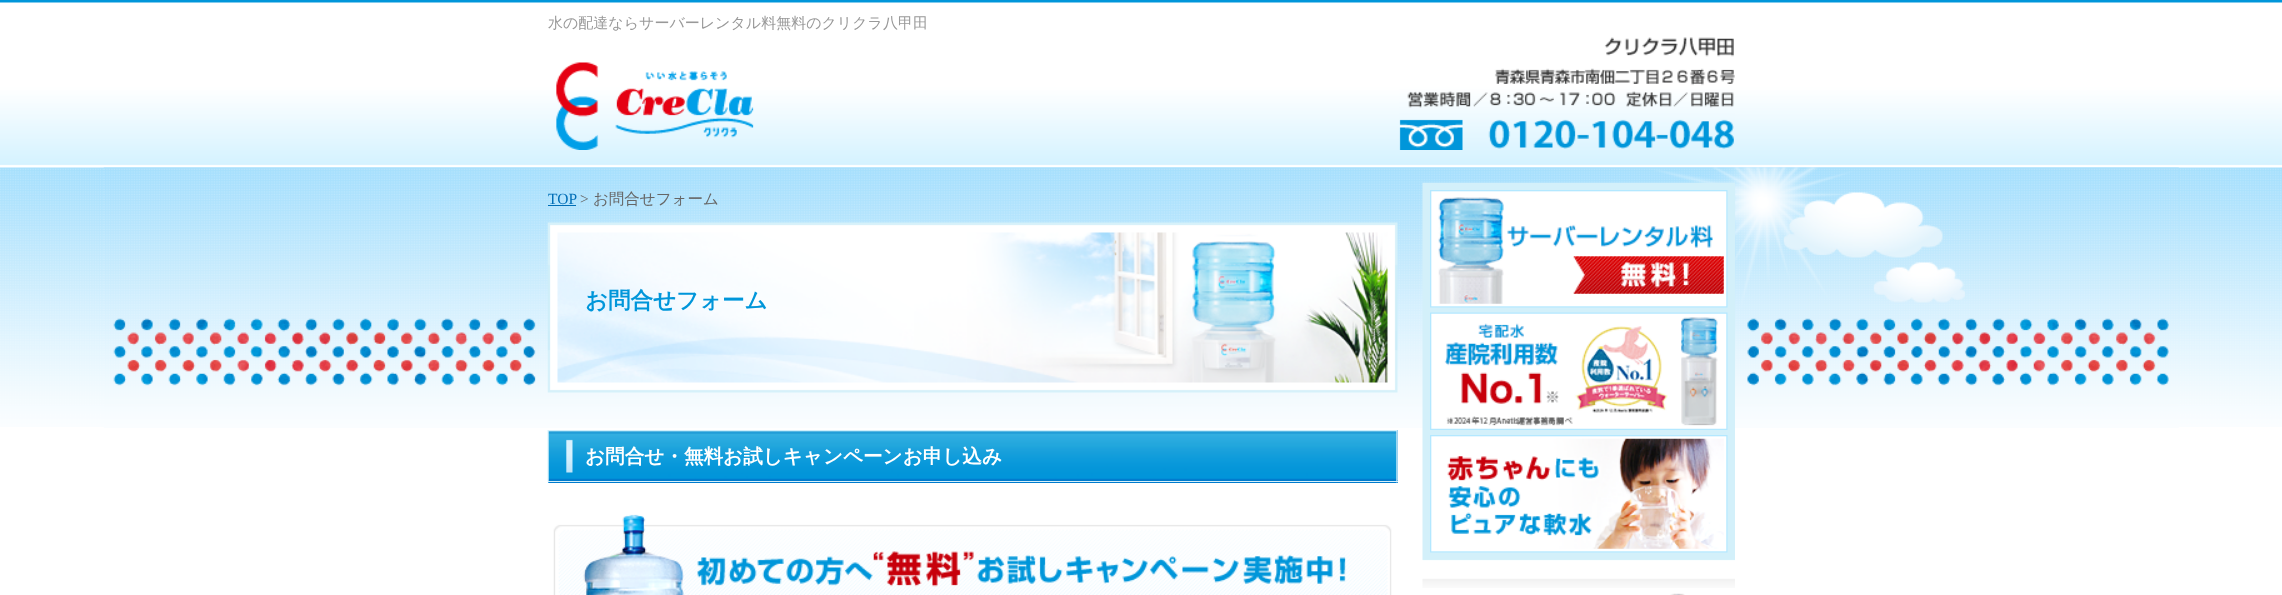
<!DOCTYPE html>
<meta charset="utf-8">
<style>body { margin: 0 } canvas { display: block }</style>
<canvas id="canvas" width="2282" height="595"></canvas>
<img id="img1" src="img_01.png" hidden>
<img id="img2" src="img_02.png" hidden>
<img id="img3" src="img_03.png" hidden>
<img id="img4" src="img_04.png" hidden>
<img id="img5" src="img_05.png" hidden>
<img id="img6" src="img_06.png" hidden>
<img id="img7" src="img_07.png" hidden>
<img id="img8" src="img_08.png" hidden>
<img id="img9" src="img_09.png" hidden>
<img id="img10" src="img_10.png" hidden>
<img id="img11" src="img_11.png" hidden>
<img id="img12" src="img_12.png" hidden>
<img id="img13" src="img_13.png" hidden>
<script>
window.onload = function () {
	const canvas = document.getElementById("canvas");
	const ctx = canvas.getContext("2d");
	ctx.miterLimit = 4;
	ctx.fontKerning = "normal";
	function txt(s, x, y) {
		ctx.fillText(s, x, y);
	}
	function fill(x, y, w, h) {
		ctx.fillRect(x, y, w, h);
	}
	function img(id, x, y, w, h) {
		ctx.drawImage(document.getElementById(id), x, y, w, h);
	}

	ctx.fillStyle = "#FFFFFF";
	fill(0, 0, 2282, 595);
	img("img1", 0, 0, 2282, 427);
	img("img2", 103, 167, 2076, 261);
	img("img3", 1399, 37, 336, 113);
	img("img4", 556, 62, 198, 88);
	ctx.fillStyle = "#006EB6";
	fill(548, 205, 28, 1);
	img("img5", 1422, 182, 313, 406);
	img("img6", 1430, 190, 298, 118);
	img("img7", 1430, 312, 298, 118);
	img("img8", 1430, 435, 298, 118);
	img("img9", 1670, 593, 15, 2);
	img("img10", 547, 222, 851, 171);
	ctx.fillStyle = "#007BCD";
	fill(548, 430, 850, 53);
	img("img11", 547, 430, 851, 53);
	ctx.fillStyle = "#D4F0FA";
	fill(548, 481, 850, 1);
	img("img12", 547, 430, 851, 50);
	img("img13", 553, 514, 839, 81);
	ctx.font = "500 15px WenQuanYi Zen Hei";
	ctx.fillStyle = "#999999";
	txt("水の配達ならサーバーレンタル料無料のクリクラ八甲田", 548, 28);
	ctx.font = "bold 22.5px WenQuanYi Zen Hei";
	ctx.fillStyle = "#0096DA";
	txt("お問合せフォーム", 585, 308);
	ctx.font = "15.5px Liberation Serif";
	ctx.fillStyle = "#006EB6";
	txt("TOP", 548, 204);
	ctx.fillStyle = "#666666";
	txt(">", 580, 204);
	ctx.font = "500 15.5px WenQuanYi Zen Hei";
	txt("お問合せフォーム", 593, 204);
	ctx.font = "bold 19.6px WenQuanYi Zen Hei";
	ctx.fillStyle = "#FFFFFF";
	txt("お問合せ・無料お試しキャンペーンお申し込み", 585, 463);
};
</script>
